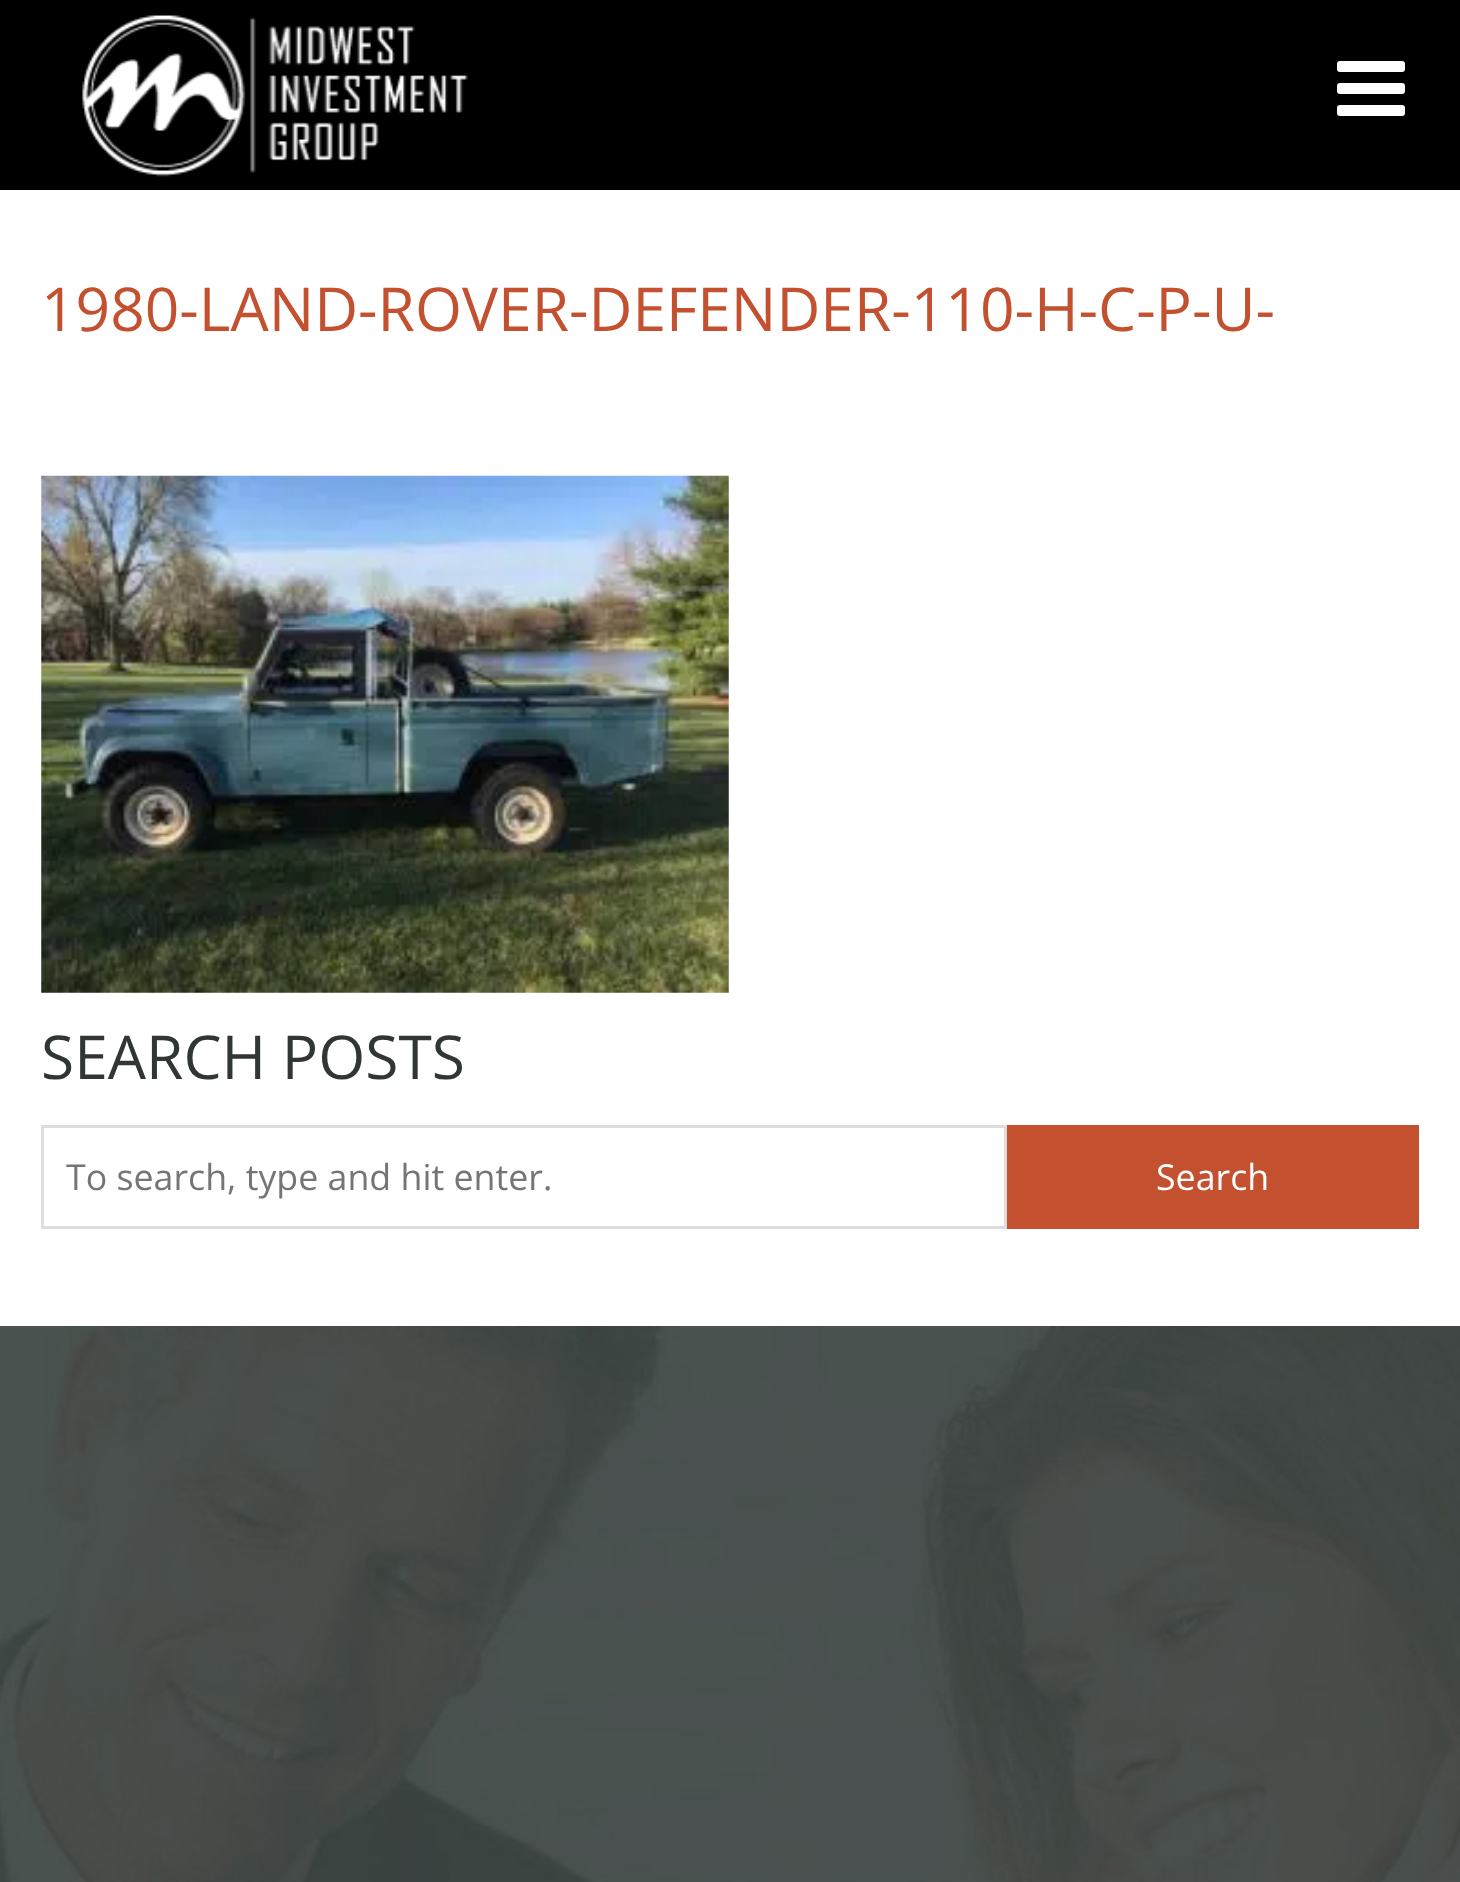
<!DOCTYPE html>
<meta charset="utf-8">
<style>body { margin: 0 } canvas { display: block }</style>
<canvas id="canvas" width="1460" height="1882"></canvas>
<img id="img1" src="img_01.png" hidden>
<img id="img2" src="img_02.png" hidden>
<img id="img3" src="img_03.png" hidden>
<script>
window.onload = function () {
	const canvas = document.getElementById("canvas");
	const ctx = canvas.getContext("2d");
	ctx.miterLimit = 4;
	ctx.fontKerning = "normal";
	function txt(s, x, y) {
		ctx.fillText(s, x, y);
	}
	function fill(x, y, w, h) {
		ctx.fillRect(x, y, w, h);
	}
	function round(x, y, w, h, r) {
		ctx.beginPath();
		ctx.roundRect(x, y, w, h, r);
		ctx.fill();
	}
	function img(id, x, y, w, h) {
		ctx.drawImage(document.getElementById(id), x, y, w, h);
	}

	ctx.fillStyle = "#FFFFFF";
	fill(0, 0, 1460, 1882);
	ctx.fillStyle = "#000000";
	fill(0, 0, 1460, 190);
	img("img1", 82, 15, 386, 162);
	ctx.fillStyle = "#FFFFFF";
	round(1337, 61, 68, 11, 3);
	round(1337, 83, 68, 11, 3);
	round(1337, 105, 68, 11, 3);
	img("img2", 41, 475, 688, 518);
	ctx.strokeStyle = "#DDDDDD";
	ctx.lineWidth = 3;
	ctx.strokeRect(42.5, 1126.5, 963, 101);
	ctx.fillStyle = "#C3502F";
	fill(1007, 1125, 412, 104);
	img("img3", 0, 1326, 1460, 556);
	ctx.font = "60.5px Open Sans";
	txt("1980-LAND-ROVER-DEFENDER-110-H-C-P-U-", 41, 331);
	ctx.fillStyle = "#2F3634";
	txt("SEARCH POSTS", 41, 1079);
	ctx.font = "35.75px Open Sans";
	ctx.fillStyle = "#757575";
	txt("To search, type and hit enter.", 66, 1190);
	ctx.fillStyle = "#FFFFFF";
	txt("Search", 1156, 1190);
};
</script>
